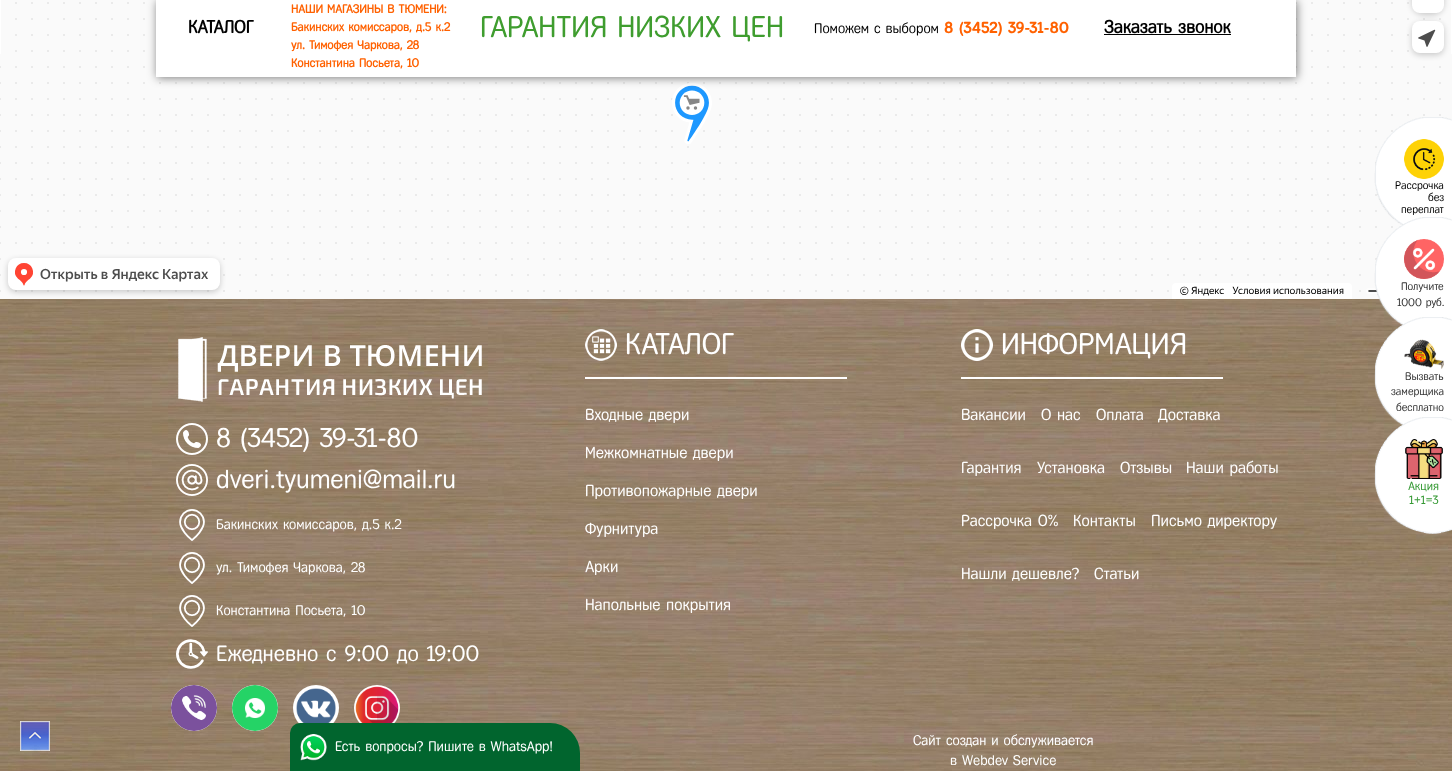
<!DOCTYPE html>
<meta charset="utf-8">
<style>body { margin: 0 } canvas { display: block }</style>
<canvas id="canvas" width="1452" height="771"></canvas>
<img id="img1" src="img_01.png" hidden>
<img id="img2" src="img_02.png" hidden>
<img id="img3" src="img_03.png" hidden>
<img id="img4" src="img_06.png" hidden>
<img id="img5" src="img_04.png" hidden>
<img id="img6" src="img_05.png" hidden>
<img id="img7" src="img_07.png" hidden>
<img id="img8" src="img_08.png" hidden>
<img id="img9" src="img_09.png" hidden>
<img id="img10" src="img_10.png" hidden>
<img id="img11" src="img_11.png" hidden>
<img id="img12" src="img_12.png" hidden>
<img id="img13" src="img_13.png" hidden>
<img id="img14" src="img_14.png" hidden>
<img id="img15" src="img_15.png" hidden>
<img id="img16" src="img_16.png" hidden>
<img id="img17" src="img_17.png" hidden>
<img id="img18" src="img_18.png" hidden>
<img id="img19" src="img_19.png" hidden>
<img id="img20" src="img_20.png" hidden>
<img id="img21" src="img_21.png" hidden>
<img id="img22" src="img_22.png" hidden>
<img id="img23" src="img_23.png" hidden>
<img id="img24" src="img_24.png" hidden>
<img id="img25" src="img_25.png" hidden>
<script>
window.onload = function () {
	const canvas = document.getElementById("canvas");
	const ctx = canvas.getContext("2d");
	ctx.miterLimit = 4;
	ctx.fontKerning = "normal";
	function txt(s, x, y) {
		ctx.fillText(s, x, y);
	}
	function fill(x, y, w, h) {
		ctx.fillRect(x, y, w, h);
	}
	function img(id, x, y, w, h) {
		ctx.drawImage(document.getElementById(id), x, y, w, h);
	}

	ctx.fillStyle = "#FFFFFF";
	fill(0, 0, 1452, 771);
	img("img1", 0, 0, 1452, 299);
	fill(1451, 0, 1, 54);
	fill(0, 0, 1, 54);
	ctx.fillStyle = "rgba(0, 0, 0, 0.5)";
	ctx.filter = "blur(5px)";
	ctx.beginPath();
	ctx.rect(157, 1, 1140, 77);
	ctx.fill();
	ctx.filter = "none";
	ctx.fillStyle = "#FFFFFF";
	fill(156, 0, 1140, 77);
	ctx.fillStyle = "#000000";
	fill(1104, 34, 127, 1);
	img("img2", 1374, 117, 78, 108);
	img("img3", 1404, 139, 40, 40);
	img("img4", 0, 299, 1452, 472);
	img("img5", 1374, 217, 78, 108);
	img("img6", 1404, 239, 40, 40);
	img("img7", 178, 337, 304, 65);
	img("img8", 176, 423, 32, 32);
	img("img9", 176, 464, 32, 32);
	img("img10", 179, 509, 26, 32);
	img("img11", 179, 552, 26, 32);
	img("img12", 179, 595, 26, 32);
	img("img13", 176, 639, 32, 30);
	img("img14", 585, 329, 32, 32);
	ctx.fillStyle = "#FFFFFF";
	fill(585, 377, 262, 2);
	img("img15", 961, 329, 32, 32);
	fill(961, 377, 262, 2);
	ctx.beginPath();
	ctx.arc(194, 708, 23, 0, Math.PI * 2);
	ctx.fill();
	img("img16", 171, 685, 46, 46);
	ctx.beginPath();
	ctx.arc(255, 708, 23, 0, Math.PI * 2);
	ctx.fill();
	img("img17", 232, 685, 46, 46);
	ctx.beginPath();
	ctx.arc(316, 708, 23, 0, Math.PI * 2);
	ctx.fill();
	img("img18", 296, 688, 40, 35);
	ctx.beginPath();
	ctx.arc(377, 708, 23, 0, Math.PI * 2);
	ctx.fill();
	img("img19", 355, 686, 44, 37);
	img("img20", 1374, 317, 78, 108);
	img("img21", 1404, 339, 40, 30);
	img("img22", 1374, 417, 78, 117);
	img("img23", 1405, 439, 38, 40);
	img("img24", 20, 721, 30, 30);
	ctx.fillStyle = "#01652E";
	ctx.beginPath();
	ctx.roundRect(290, 723, 290, 48, [10, 30, 0, 0]);
	ctx.fill();
	img("img25", 300, 734, 27, 27);
	ctx.font = "bold 18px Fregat";
	ctx.fillStyle = "#000000";
	txt("КАТАЛОГ", 188, 33);
	ctx.font = "bold 12px Fregat";
	ctx.fillStyle = "#FF6100";
	txt("НАШИ МАГАЗИНЫ В ТЮМЕНИ:", 291, 13);
	txt("Бакинских комиссаров, д.5 к.2", 291, 31);
	txt("ул. Тимофея Чаркова, 28", 291, 49);
	txt("Константина Посьета, 10", 291, 67);
	ctx.font = "30px Fregat";
	ctx.fillStyle = "#3F9D2F";
	txt("ГАРАНТИЯ НИЗКИХ ЦЕН", 480, 37);
	ctx.font = "14px Fregat";
	ctx.fillStyle = "#000000";
	txt("Поможем с выбором", 814, 33);
	ctx.font = "bold 16px 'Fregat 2'";
	ctx.fillStyle = "#FF6100";
	txt("8 (3452) 39-31-80", 944, 33);
	ctx.font = "bold 18px Fregat";
	ctx.fillStyle = "#000000";
	txt("Заказать звонок", 1104, 33);
	ctx.font = "11px Fregat";
	txt("Рассрочка", 1395, 189);
	txt("без", 1428, 201);
	txt("переплат", 1401, 213);
	ctx.fillStyle = "#333333";
	txt("Получите", 1401, 290);
	txt("1000 руб.", 1397, 306);
	ctx.font = "27px Fregat";
	ctx.fillStyle = "#FFFFFF";
	txt("8 (3452) 39-31-80", 216, 447);
	ctx.font = "26px Fregat";
	txt("dveri.tyumeni@mail.ru", 216, 488);
	ctx.font = "14px Fregat";
	txt("Бакинских комиссаров, д.5 к.2", 216, 529);
	txt("ул. Тимофея Чаркова, 28", 216, 572);
	txt("Константина Посьета, 10", 216, 615);
	ctx.font = "22px Fregat";
	txt("Ежедневно с 9:00 до 19:00", 216, 661);
	ctx.font = "30px Fregat";
	txt("КАТАЛОГ", 625, 354);
	ctx.font = "16px Fregat";
	txt("Входные двери", 585, 420);
	txt("Межкомнатные двери", 585, 458);
	txt("Противопожарные двери", 585, 496);
	txt("Фурнитура", 585, 534);
	txt("Арки", 585, 572);
	txt("Напольные покрытия", 585, 610);
	ctx.font = "30px Fregat";
	txt("ИНФОРМАЦИЯ", 1001, 354);
	ctx.font = "16px Fregat";
	txt("Вакансии", 961, 420);
	txt("О нас", 1041, 420);
	txt("Оплата", 1096, 420);
	txt("Доставка", 1158, 420);
	txt("Гарантия", 961, 473);
	txt("Установка", 1037, 473);
	txt("Отзывы", 1120, 473);
	txt("Наши работы", 1186, 473);
	txt("Рассрочка 0%", 961, 526);
	txt("Контакты", 1073, 526);
	txt("Письмо директору", 1151, 526);
	txt("Нашли дешевле?", 961, 579);
	txt("Статьи", 1094, 579);
	ctx.font = "14px Fregat";
	txt("Сайт создан и обслуживается", 913, 745);
	txt("в Webdev Service", 950, 765);
	ctx.font = "11px Fregat";
	ctx.fillStyle = "#333333";
	txt("Вызвать", 1405, 380);
	txt("замерщика", 1391, 395);
	txt("бесплатно", 1396, 411);
	ctx.font = "12px Fregat";
	ctx.fillStyle = "#349933";
	txt("Акция", 1408, 490);
	txt("1+1=3", 1409, 504);
	ctx.font = "14px Fregat";
	ctx.fillStyle = "#FFFFFF";
	txt("Есть вопросы? Пишите в WhatsApp!", 335, 751);
};
</script>
